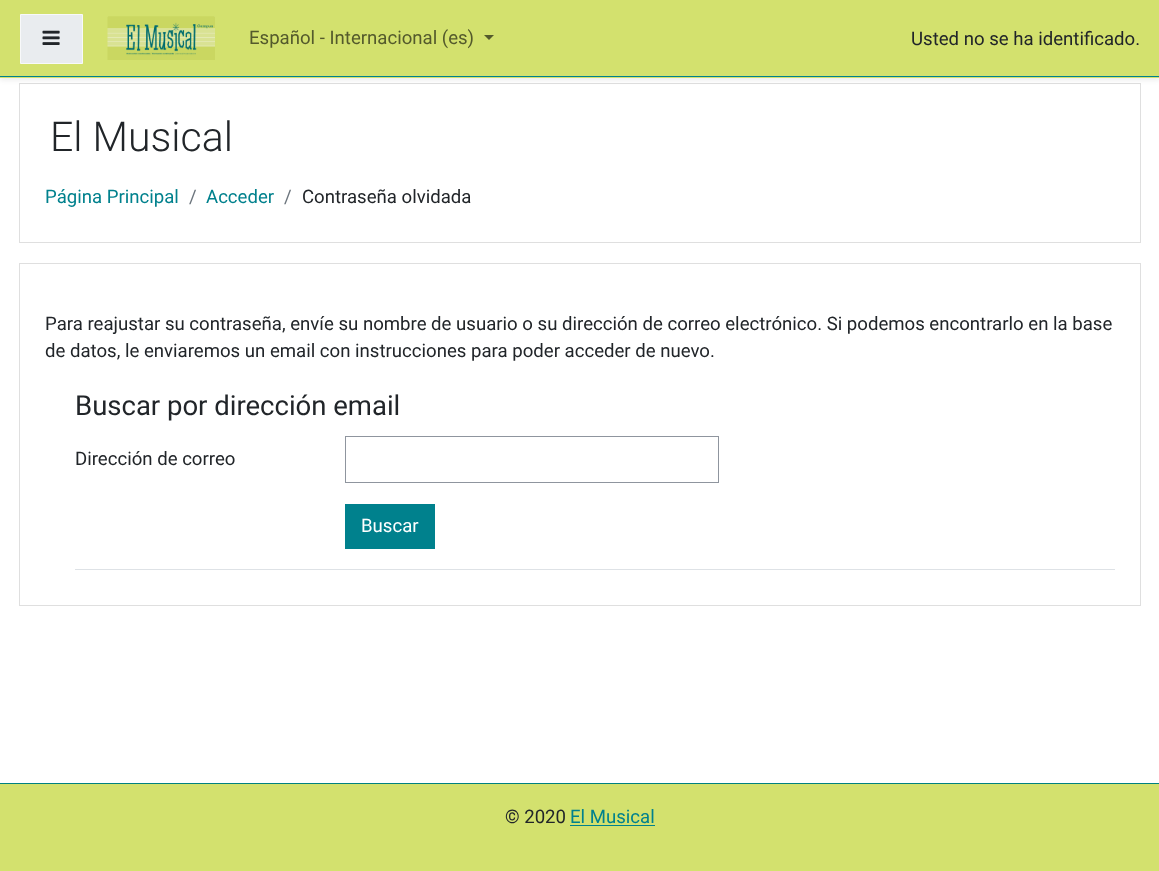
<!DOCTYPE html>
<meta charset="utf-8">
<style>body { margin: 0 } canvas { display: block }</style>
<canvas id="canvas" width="1159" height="871"></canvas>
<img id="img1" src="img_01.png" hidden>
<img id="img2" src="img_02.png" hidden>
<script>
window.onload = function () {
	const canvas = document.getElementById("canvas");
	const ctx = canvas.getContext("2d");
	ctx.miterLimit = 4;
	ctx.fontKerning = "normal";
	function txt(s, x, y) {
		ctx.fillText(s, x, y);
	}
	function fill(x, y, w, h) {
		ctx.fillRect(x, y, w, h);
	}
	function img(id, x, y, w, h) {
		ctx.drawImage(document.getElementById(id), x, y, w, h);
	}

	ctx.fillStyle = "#FFFFFF";
	fill(0, 0, 1159, 871);
	ctx.strokeStyle = "#DFDFDF";
	ctx.strokeRect(19.5, 83.5, 1121, 159);
	ctx.fillStyle = "rgba(0, 0, 0, 0.08)";
	ctx.filter = "blur(2.5px)";
	ctx.beginPath();
	ctx.rect(0, 3, 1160, 77);
	ctx.fill();
	ctx.filter = "none";
	ctx.fillStyle = "#D3E16E";
	fill(0, 0, 1159, 78);
	ctx.fillStyle = "#00818D";
	fill(0, 76, 1159, 1);
	ctx.fillStyle = "#E9ECEF";
	ctx.beginPath();
	ctx.rect(20.5, 14.5, 62, 49);
	ctx.fill();
	ctx.strokeStyle = "#F8F9FA";
	ctx.stroke();
	img("img1", 42, 30, 18, 15);
	img("img2", 107, 16, 108, 44);
	ctx.fillStyle = "#545A2C";
	ctx.beginPath();
	ctx.moveTo(484, 35);
	ctx.lineTo(494, 35);
	ctx.lineTo(489, 40);
	ctx.closePath();
	ctx.fill();
	ctx.strokeStyle = "#DFDFDF";
	ctx.strokeRect(19.5, 263.5, 1121, 342);
	ctx.fillStyle = "#DEE2E6";
	fill(75, 569, 1040, 1);
	ctx.strokeStyle = "#8F959E";
	ctx.strokeRect(345.5, 436.5, 373, 46);
	ctx.fillStyle = "#00818D";
	fill(345, 504, 90, 45);
	ctx.fillStyle = "#D3E16E";
	fill(0, 784, 1159, 87);
	ctx.fillStyle = "#008180";
	fill(0, 783, 1159, 1);
	ctx.fillStyle = "#00818D";
	fill(570, 825, 85, 1);
	ctx.font = "18.6px Roboto";
	ctx.fillStyle = "#545A2C";
	txt("Español - Internacional (es)", 249, 44);
	ctx.fillStyle = "#212529";
	txt("Usted no se ha identificado.", 911, 45);
	ctx.font = "300 41px Roboto";
	txt("El Musical", 50, 151);
	ctx.font = "18.6px Roboto";
	ctx.fillStyle = "#00818D";
	txt("Página Principal", 45, 203);
	ctx.fillStyle = "#6C757D";
	txt("/", 189, 203);
	ctx.fillStyle = "#00818D";
	txt("Acceder", 206, 203);
	ctx.fillStyle = "#6C757D";
	txt("/", 284, 203);
	ctx.fillStyle = "#212529";
	txt("Contraseña olvidada", 302, 203);
	txt("Para reajustar su contraseña, envíe su nombre de usuario o su dirección de correo electrónico. Si podemos encontrarlo en la base", 45, 330);
	txt("de datos, le enviaremos un email con instrucciones para poder acceder de nuevo.", 45, 357);
	ctx.font = "27.5px Roboto";
	txt("Buscar por dirección email", 75, 415);
	ctx.font = "18.6px Roboto";
	txt("Dirección de correo", 75, 465);
	ctx.fillStyle = "#FFFFFF";
	txt("Buscar", 361, 532);
	ctx.fillStyle = "#212529";
	txt("© 2020", 505, 823);
	ctx.fillStyle = "#00818D";
	txt("El Musical", 570, 823);
};
</script>
